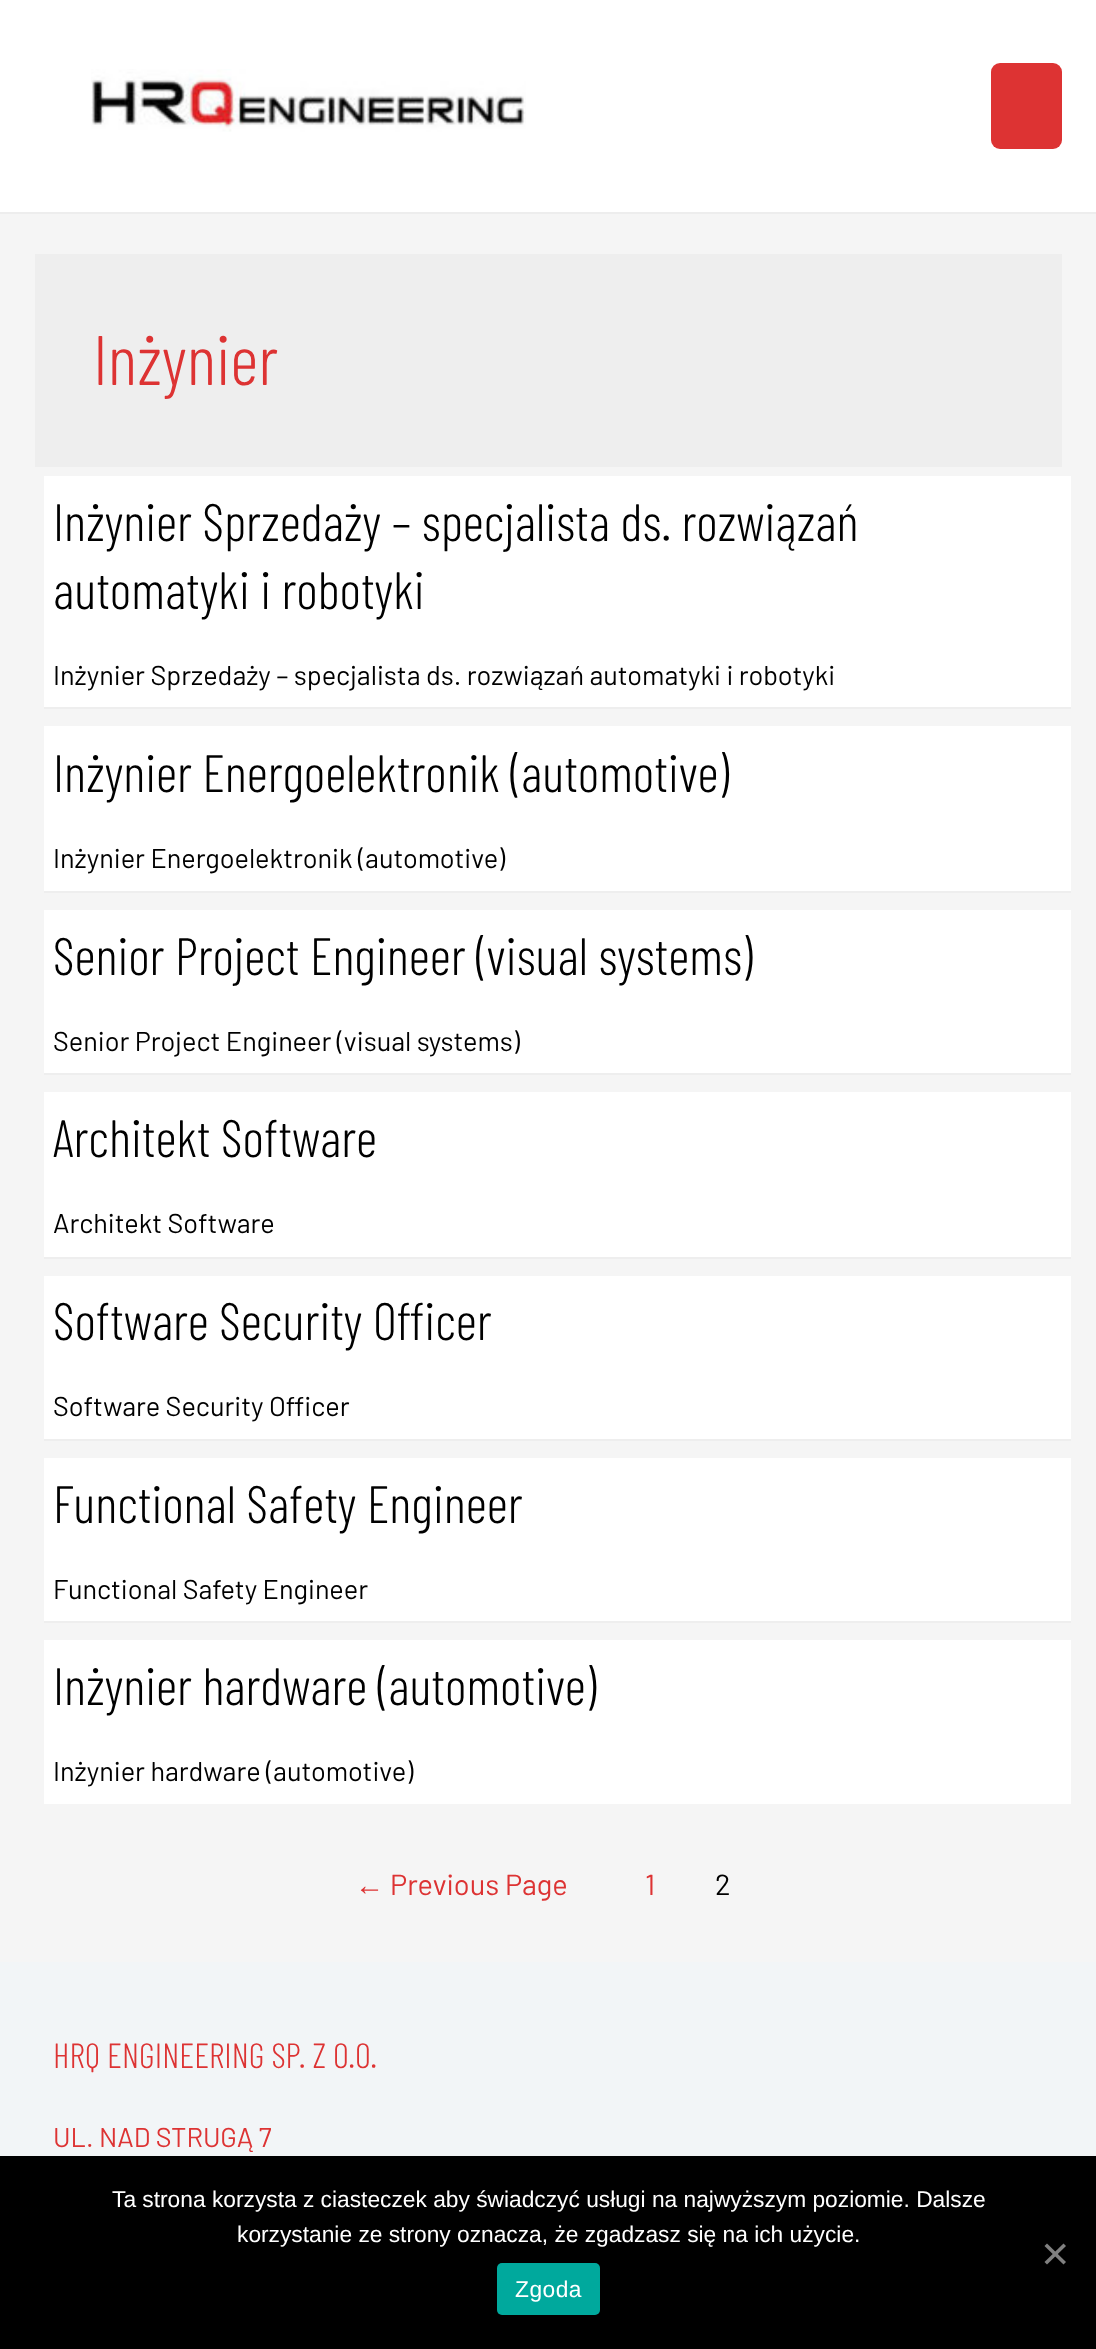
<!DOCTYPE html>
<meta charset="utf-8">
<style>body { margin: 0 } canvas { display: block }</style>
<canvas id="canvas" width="1096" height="2349"></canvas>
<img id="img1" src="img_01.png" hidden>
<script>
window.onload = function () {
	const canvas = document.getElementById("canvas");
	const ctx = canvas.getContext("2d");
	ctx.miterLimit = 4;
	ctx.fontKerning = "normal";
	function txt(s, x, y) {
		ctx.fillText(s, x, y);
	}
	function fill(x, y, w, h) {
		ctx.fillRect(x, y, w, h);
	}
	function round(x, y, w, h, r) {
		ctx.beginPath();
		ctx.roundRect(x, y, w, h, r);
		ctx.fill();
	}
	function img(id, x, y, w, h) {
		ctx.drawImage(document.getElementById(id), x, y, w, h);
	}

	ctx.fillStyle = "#F5F5F5";
	fill(0, 0, 1096, 2349);
	ctx.fillStyle = "#FFFFFF";
	fill(0, 0, 1096, 212);
	ctx.fillStyle = "#EDEDED";
	fill(0, 212, 1096, 2);
	img("img1", 91, 69, 435, 63);
	ctx.fillStyle = "#DD3333";
	round(991, 63, 71, 86, 9);
	ctx.fillStyle = "#EEEEEE";
	fill(35, 254, 1027, 213);
	ctx.fillStyle = "#FFFFFF";
	fill(44, 476, 1027, 231);
	ctx.fillStyle = "#EEEEEE";
	fill(44, 707, 1027, 2);
	ctx.fillStyle = "#FFFFFF";
	fill(44, 726, 1027, 165);
	ctx.fillStyle = "#EEEEEE";
	fill(44, 891, 1027, 2);
	ctx.fillStyle = "#FFFFFF";
	fill(44, 910, 1027, 163);
	ctx.fillStyle = "#EEEEEE";
	fill(44, 1073, 1027, 2);
	ctx.fillStyle = "#FFFFFF";
	fill(44, 1092, 1027, 165);
	ctx.fillStyle = "#EEEEEE";
	fill(44, 1257, 1027, 2);
	ctx.fillStyle = "#FFFFFF";
	fill(44, 1276, 1027, 163);
	ctx.fillStyle = "#EEEEEE";
	fill(44, 1439, 1027, 2);
	ctx.fillStyle = "#FFFFFF";
	fill(44, 1458, 1027, 163);
	ctx.fillStyle = "#EEEEEE";
	fill(44, 1621, 1027, 2);
	ctx.fillStyle = "#FFFFFF";
	fill(44, 1640, 1027, 164);
	ctx.fillStyle = "#F2F5F7";
	fill(0, 1962, 1096, 194);
	ctx.fillStyle = "#000000";
	fill(0, 2156, 1096, 193);
	ctx.fillStyle = "#808080";
	ctx.beginPath();
	ctx.moveTo(1063.5, 2243.5);
	ctx.lineTo(1066, 2246);
	ctx.lineTo(1047, 2264.5);
	ctx.lineTo(1044.5, 2262);
	ctx.closePath();
	ctx.fill();
	ctx.beginPath();
	ctx.moveTo(1044.5, 2246);
	ctx.lineTo(1047, 2243.5);
	ctx.lineTo(1066, 2262);
	ctx.lineTo(1063.5, 2264.5);
	ctx.closePath();
	ctx.fill();
	ctx.fillStyle = "#00A99D";
	round(497, 2263, 103, 52, 5);
	ctx.font = "300 70px Barlow Condensed";
	ctx.fillStyle = "#DD3333";
	txt("Inżynier", 93, 385);
	ctx.font = "300 52.5px Barlow Condensed";
	ctx.fillStyle = "#000000";
	txt("Inżynier Sprzedaży – specjalista ds. rozwiązań", 53, 541);
	txt("automatyki i robotyki", 53, 609);
	ctx.font = "27.1px Barlow";
	txt("Inżynier Sprzedaży – specjalista ds. rozwiązań automatyki i robotyki", 53, 685);
	ctx.font = "300 52.5px Barlow Condensed";
	txt("Inżynier Energoelektronik (automotive)", 53, 792);
	ctx.font = "27.1px Barlow";
	txt("Inżynier Energoelektronik (automotive)", 53, 868);
	ctx.font = "300 52.5px Barlow Condensed";
	txt("Senior Project Engineer (visual systems)", 53, 975);
	ctx.font = "27.1px Barlow";
	txt("Senior Project Engineer (visual systems)", 53, 1051);
	ctx.font = "300 52.5px Barlow Condensed";
	txt("Architekt Software", 53, 1157);
	ctx.font = "27.1px Barlow";
	txt("Architekt Software", 53, 1233);
	ctx.font = "300 52.5px Barlow Condensed";
	txt("Software Security Officer", 53, 1340);
	ctx.font = "27.1px Barlow";
	txt("Software Security Officer", 53, 1416);
	ctx.font = "300 52.5px Barlow Condensed";
	txt("Functional Safety Engineer", 53, 1523);
	ctx.font = "27.1px Barlow";
	txt("Functional Safety Engineer", 53, 1599);
	ctx.font = "300 52.5px Barlow Condensed";
	txt("Inżynier hardware (automotive)", 53, 1705);
	ctx.font = "27.1px Barlow";
	txt("Inżynier hardware (automotive)", 53, 1781);
	ctx.font = "29px Liberation Sans";
	ctx.fillStyle = "#DD3333";
	txt("←", 355, 1895);
	ctx.font = "29px Barlow";
	txt("Previous Page", 390, 1895);
	txt("1", 645, 1895);
	ctx.fillStyle = "#000000";
	txt("2", 715, 1895);
	ctx.font = "300 35px Barlow Condensed";
	ctx.fillStyle = "#DD3333";
	txt("HRQ ENGINEERING SP. Z O.O.", 53, 2068);
	ctx.font = "27.1px Barlow";
	txt("UL. NAD STRUGĄ 7", 53, 2147);
	ctx.font = "22.75px Liberation Sans";
	ctx.fillStyle = "#FFFFFF";
	txt("Ta strona korzysta z ciasteczek aby świadczyć usługi na najwyższym poziomie. Dalsze", 112, 2207);
	txt("korzystanie ze strony oznacza, że zgadzasz się na ich użycie.", 237, 2242);
	ctx.letterSpacing = "0.5px";
	txt("Zgoda", 515, 2297);
};
</script>
